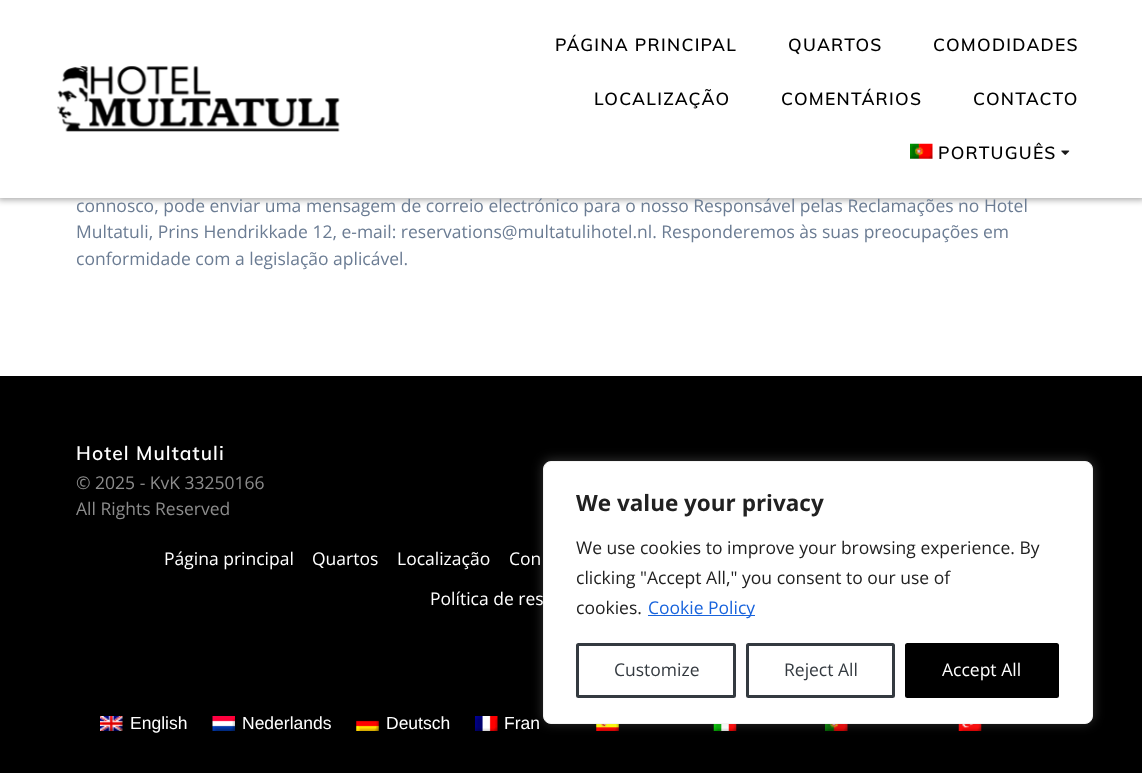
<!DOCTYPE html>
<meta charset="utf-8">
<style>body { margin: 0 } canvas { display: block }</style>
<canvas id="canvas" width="1142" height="773"></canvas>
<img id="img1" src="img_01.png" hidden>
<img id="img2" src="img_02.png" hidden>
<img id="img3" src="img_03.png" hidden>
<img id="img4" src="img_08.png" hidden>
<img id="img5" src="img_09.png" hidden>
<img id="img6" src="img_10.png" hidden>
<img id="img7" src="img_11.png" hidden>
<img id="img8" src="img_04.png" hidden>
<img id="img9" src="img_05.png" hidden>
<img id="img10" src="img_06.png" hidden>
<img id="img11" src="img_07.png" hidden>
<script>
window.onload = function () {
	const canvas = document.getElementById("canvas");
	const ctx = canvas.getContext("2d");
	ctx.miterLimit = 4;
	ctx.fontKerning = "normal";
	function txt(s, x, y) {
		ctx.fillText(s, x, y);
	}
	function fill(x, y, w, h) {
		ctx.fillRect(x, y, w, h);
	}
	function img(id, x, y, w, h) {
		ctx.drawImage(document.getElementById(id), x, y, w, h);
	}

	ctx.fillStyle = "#FFFFFF";
	fill(0, 0, 1142, 773);
	ctx.fillStyle = "rgba(0, 0, 0, 0.33)";
	ctx.filter = "blur(3px)";
	ctx.beginPath();
	ctx.rect(-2, -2, 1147, 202);
	ctx.fill();
	ctx.filter = "none";
	ctx.fillStyle = "#FFFFFF";
	fill(0, 0, 1142, 198);
	img("img1", 57, 66, 283, 66);
	img("img2", 910, 143, 23, 16);
	img("img3", 1061, 150, 9, 5);
	ctx.fillStyle = "#000000";
	fill(0, 376, 1142, 397);
	img("img4", 596, 724, 23, 7);
	img("img5", 713, 724, 24, 7);
	img("img6", 825, 724, 23, 7);
	img("img7", 958, 724, 24, 7);
	ctx.fillStyle = "rgba(172, 171, 171, 0.3)";
	ctx.filter = "blur(6px)";
	ctx.beginPath();
	ctx.roundRect(543, 460, 550, 263, 8);
	ctx.fill();
	ctx.filter = "none";
	ctx.fillStyle = "#FFFFFF";
	ctx.beginPath();
	ctx.roundRect(543.5, 461.5, 549, 262, 7.5);
	ctx.fill();
	ctx.strokeStyle = "#F4F4F4";
	ctx.stroke();
	ctx.fillStyle = "#1863DC";
	fill(648, 615, 107, 1);
	ctx.beginPath();
	ctx.roundRect(577.5, 644.5, 157, 52, 1);
	ctx.strokeStyle = "#343A40";
	ctx.lineWidth = 3;
	ctx.stroke();
	ctx.beginPath();
	ctx.roundRect(747.5, 644.5, 146, 52, 1);
	ctx.stroke();
	ctx.fillStyle = "#000000";
	ctx.beginPath();
	ctx.roundRect(906.5, 644.5, 151, 52, 1);
	ctx.fill();
	ctx.strokeStyle = "#000000";
	ctx.stroke();
	img("img8", 100, 716, 23, 15);
	img("img9", 212, 716, 23, 15);
	img("img10", 356, 720, 23, 11);
	img("img11", 475, 716, 23, 15);
	ctx.letterSpacing = "1.25px";
	ctx.font = "600 17.5px Muli";
	txt("PÁGINA PRINCIPAL", 555, 51);
	txt("QUARTOS", 788, 51);
	txt("COMODIDADES", 933, 51);
	txt("LOCALIZAÇÃO", 594, 105);
	txt("COMENTÁRIOS", 781, 105);
	txt("CONTACTO", 973, 105);
	txt("PORTUGUÊS", 938, 159);
	ctx.letterSpacing = "0px";
	ctx.font = "17.5px Open Sans";
	ctx.fillStyle = "#6B7C93";
	txt("connosco, pode enviar uma mensagem de correio electrónico para o nosso Responsável pelas Reclamações no Hotel", 76, 212);
	txt("Multatuli, Prins Hendrikkade 12, e-mail: reservations@multatulihotel.nl. Responderemos às suas preocupações em", 76, 238);
	txt("conformidade com a legislação aplicável.", 76, 265);
	ctx.letterSpacing = "1.1px";
	ctx.font = "600 19.25px Muli";
	ctx.fillStyle = "#FFFFFF";
	txt("Hotel Multatuli", 76, 460);
	ctx.letterSpacing = "0px";
	ctx.font = "17.5px Open Sans";
	ctx.fillStyle = "#8C8C8C";
	txt("© 2025 - KvK 33250166", 76, 489);
	txt("All Rights Reserved", 76, 515);
	ctx.fillStyle = "#FFFFFF";
	txt("Página principal", 164, 565);
	txt("Quartos", 312, 565);
	txt("Localização", 397, 565);
	txt("Con", 509, 565);
	txt("Política de res", 430, 605);
	ctx.font = "bold 22.5px Open Sans";
	ctx.fillStyle = "#212121";
	txt("We value your privacy", 576, 511);
	ctx.font = "17.5px Open Sans";
	txt("We use cookies to improve your browsing experience. By", 576, 554);
	txt("clicking \"Accept All,\" you consent to our use of", 576, 584);
	txt("cookies.", 576, 614);
	ctx.fillStyle = "#1863DC";
	txt("Cookie Policy", 648, 614);
	ctx.fillStyle = "#343A40";
	txt("Customize", 614, 676);
	txt("Reject All", 784, 676);
	ctx.fillStyle = "#FFFFFF";
	txt("Accept All", 942, 676);
	ctx.font = "17.5px Liberation Sans";
	txt("English", 130, 729);
	txt("Nederlands", 242, 729);
	txt("Deutsch", 386, 729);
	txt("Fran", 504, 729);
};
</script>
